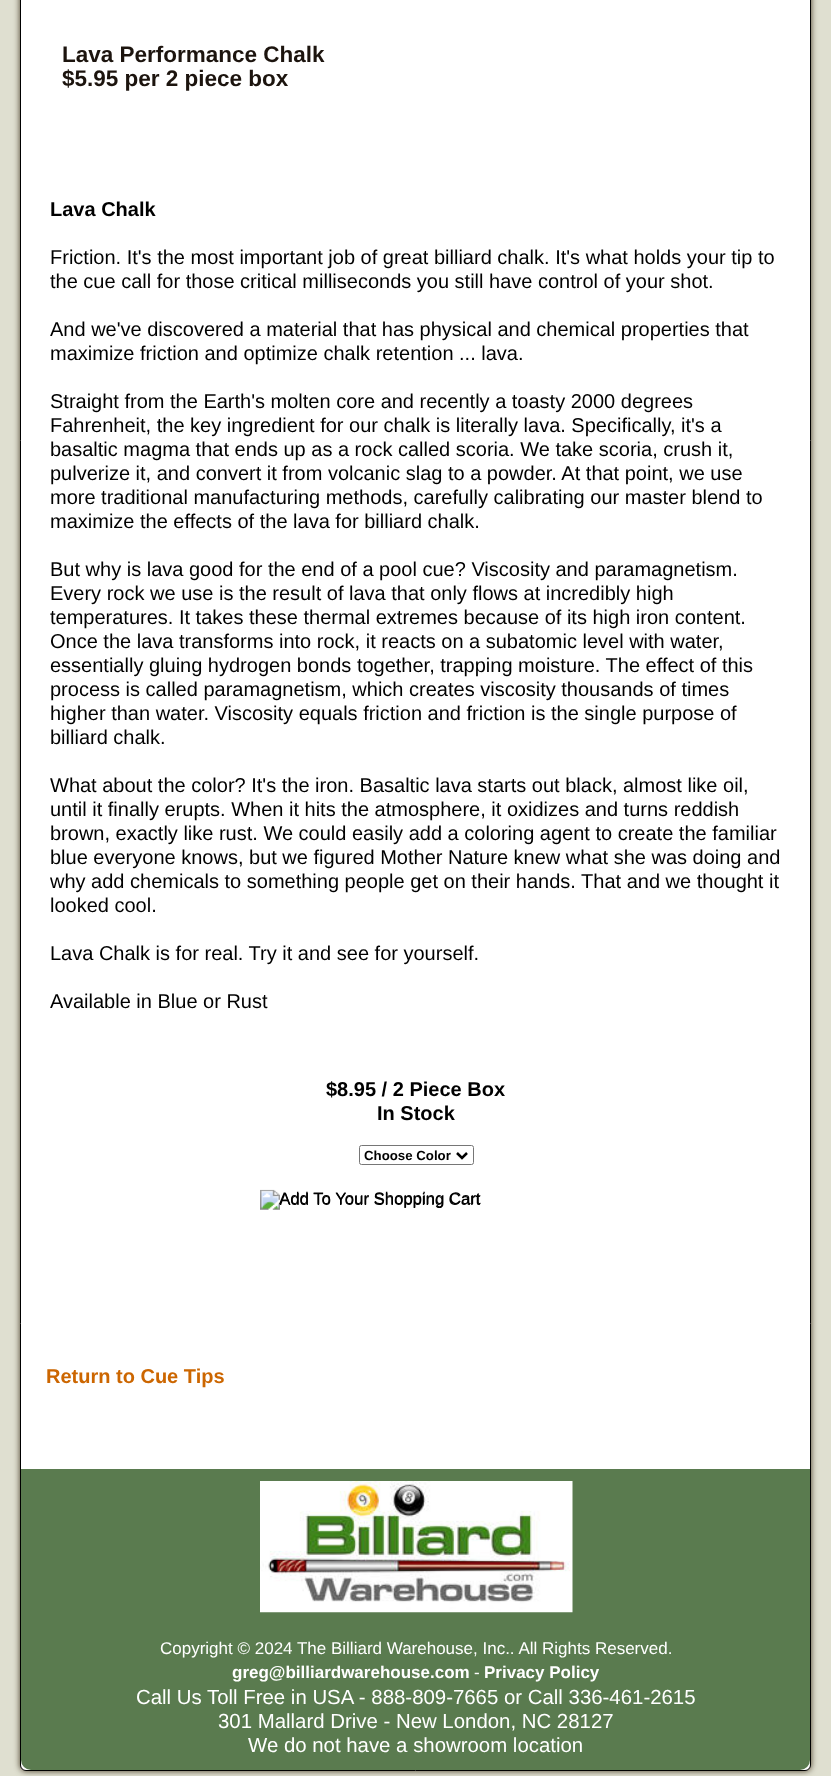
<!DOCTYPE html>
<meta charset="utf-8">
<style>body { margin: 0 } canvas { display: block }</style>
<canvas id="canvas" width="831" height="1776"></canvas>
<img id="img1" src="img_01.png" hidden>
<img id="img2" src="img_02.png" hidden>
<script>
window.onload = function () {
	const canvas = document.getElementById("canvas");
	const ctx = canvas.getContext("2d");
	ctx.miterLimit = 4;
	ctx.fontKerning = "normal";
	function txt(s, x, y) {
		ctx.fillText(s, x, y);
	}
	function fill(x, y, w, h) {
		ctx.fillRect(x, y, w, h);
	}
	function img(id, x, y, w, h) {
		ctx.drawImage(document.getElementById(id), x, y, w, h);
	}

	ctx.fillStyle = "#DFDFD0";
	fill(0, 0, 831, 1776);
	ctx.fillStyle = "#453823";
	ctx.filter = "blur(3px)";
	ctx.beginPath();
	ctx.roundRect(20, -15, 791, 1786, 6);
	ctx.fill();
	ctx.filter = "none";
	ctx.fillStyle = "#FFFFFF";
	ctx.beginPath();
	ctx.roundRect(20.5, -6.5, 790, 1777, 5.5);
	ctx.fill();
	ctx.strokeStyle = "#000000";
	ctx.stroke();
	ctx.beginPath();
	ctx.roundRect(359.5, 1145.5, 114, 19, 2);
	ctx.strokeStyle = "#767676";
	ctx.stroke();
	ctx.beginPath();
	ctx.moveTo(457, 1153);
	ctx.lineTo(462, 1158);
	ctx.lineTo(467, 1153);
	ctx.strokeStyle = "#000000";
	ctx.lineWidth = 2.5;
	ctx.stroke();
	img("img1", 260, 1189, 220, 21);
	ctx.fillStyle = "#5A7B4F";
	ctx.beginPath();
	ctx.roundRect(21, 1469, 789, 301, [0, 0, 10, 10]);
	ctx.fill();
	img("img2", 260, 1481, 313, 132);
	ctx.font = "bold 22.5px Liberation Sans";
	ctx.fillStyle = "#1C140E";
	txt("Lava Performance Chalk", 62, 62);
	txt("$5.95 per 2 piece box", 62, 86);
	ctx.font = "bold 20px Liberation Sans";
	ctx.fillStyle = "#000000";
	txt("Lava Chalk", 50, 216);
	ctx.font = "20px Liberation Sans";
	txt("Friction. It's the most important job of great billiard chalk. It's what holds your tip to", 50, 264);
	txt("the cue call for those critical milliseconds you still have control of your shot.", 50, 288);
	txt("And we've discovered a material that has physical and chemical properties that", 50, 336);
	txt("maximize friction and optimize chalk retention ... lava.", 50, 360);
	txt("Straight from the Earth's molten core and recently a toasty 2000 degrees", 50, 408);
	txt("Fahrenheit, the key ingredient for our chalk is literally lava. Specifically, it's a", 50, 432);
	txt("basaltic magma that ends up as a rock called scoria. We take scoria, crush it,", 50, 456);
	txt("pulverize it, and convert it from volcanic slag to a powder. At that point, we use", 50, 480);
	txt("more traditional manufacturing methods, carefully calibrating our master blend to", 50, 504);
	txt("maximize the effects of the lava for billiard chalk.", 50, 528);
	txt("But why is lava good for the end of a pool cue? Viscosity and paramagnetism.", 50, 576);
	txt("Every rock we use is the result of lava that only flows at incredibly high", 50, 600);
	txt("temperatures. It takes these thermal extremes because of its high iron content.", 50, 624);
	txt("Once the lava transforms into rock, it reacts on a subatomic level with water,", 50, 648);
	txt("essentially gluing hydrogen bonds together, trapping moisture. The effect of this", 50, 672);
	txt("process is called paramagnetism, which creates viscosity thousands of times", 50, 696);
	txt("higher than water. Viscosity equals friction and friction is the single purpose of", 50, 720);
	txt("billiard chalk.", 50, 744);
	txt("What about the color? It's the iron. Basaltic lava starts out black, almost like oil,", 50, 792);
	txt("until it finally erupts. When it hits the atmosphere, it oxidizes and turns reddish", 50, 816);
	txt("brown, exactly like rust. We could easily add a coloring agent to create the familiar", 50, 840);
	txt("blue everyone knows, but we figured Mother Nature knew what she was doing and", 50, 864);
	txt("why add chemicals to something people get on their hands. That and we thought it", 50, 888);
	txt("looked cool.", 50, 912);
	txt("Lava Chalk is for real. Try it and see for yourself.", 50, 960);
	txt("Available in Blue or Rust", 50, 1008);
	ctx.font = "bold 20px Liberation Sans";
	txt("$8.95 / 2 Piece Box", 326, 1096);
	txt("In Stock", 377, 1120);
	ctx.font = "bold 13.25px Liberation Sans";
	txt("Choose Color", 364, 1160);
	ctx.font = "16.75px Liberation Sans";
	txt("Add To Your Shopping Cart", 279, 1204);
	ctx.font = "bold 20px Liberation Sans";
	ctx.fillStyle = "#CC6600";
	txt("Return to Cue Tips", 46, 1383);
	ctx.font = "17px Liberation Sans";
	ctx.fillStyle = "#FFFFFF";
	txt("Copyright © 2024 The Billiard Warehouse, Inc.. All Rights Reserved.", 160, 1654);
	ctx.font = "bold 17px Liberation Sans";
	txt("greg@billiardwarehouse.com", 232, 1678);
	ctx.font = "17px Liberation Sans";
	txt("-", 474, 1678);
	ctx.font = "bold 17px Liberation Sans";
	txt("Privacy Policy", 484, 1678);
	ctx.font = "20.4px Liberation Sans";
	txt("Call Us Toll Free in USA - 888-809-7665 or Call 336-461-2615", 136, 1704);
	txt("301 Mallard Drive - New London, NC 28127", 218, 1728);
	txt("We do not have a showroom location", 248, 1752);
};
</script>
